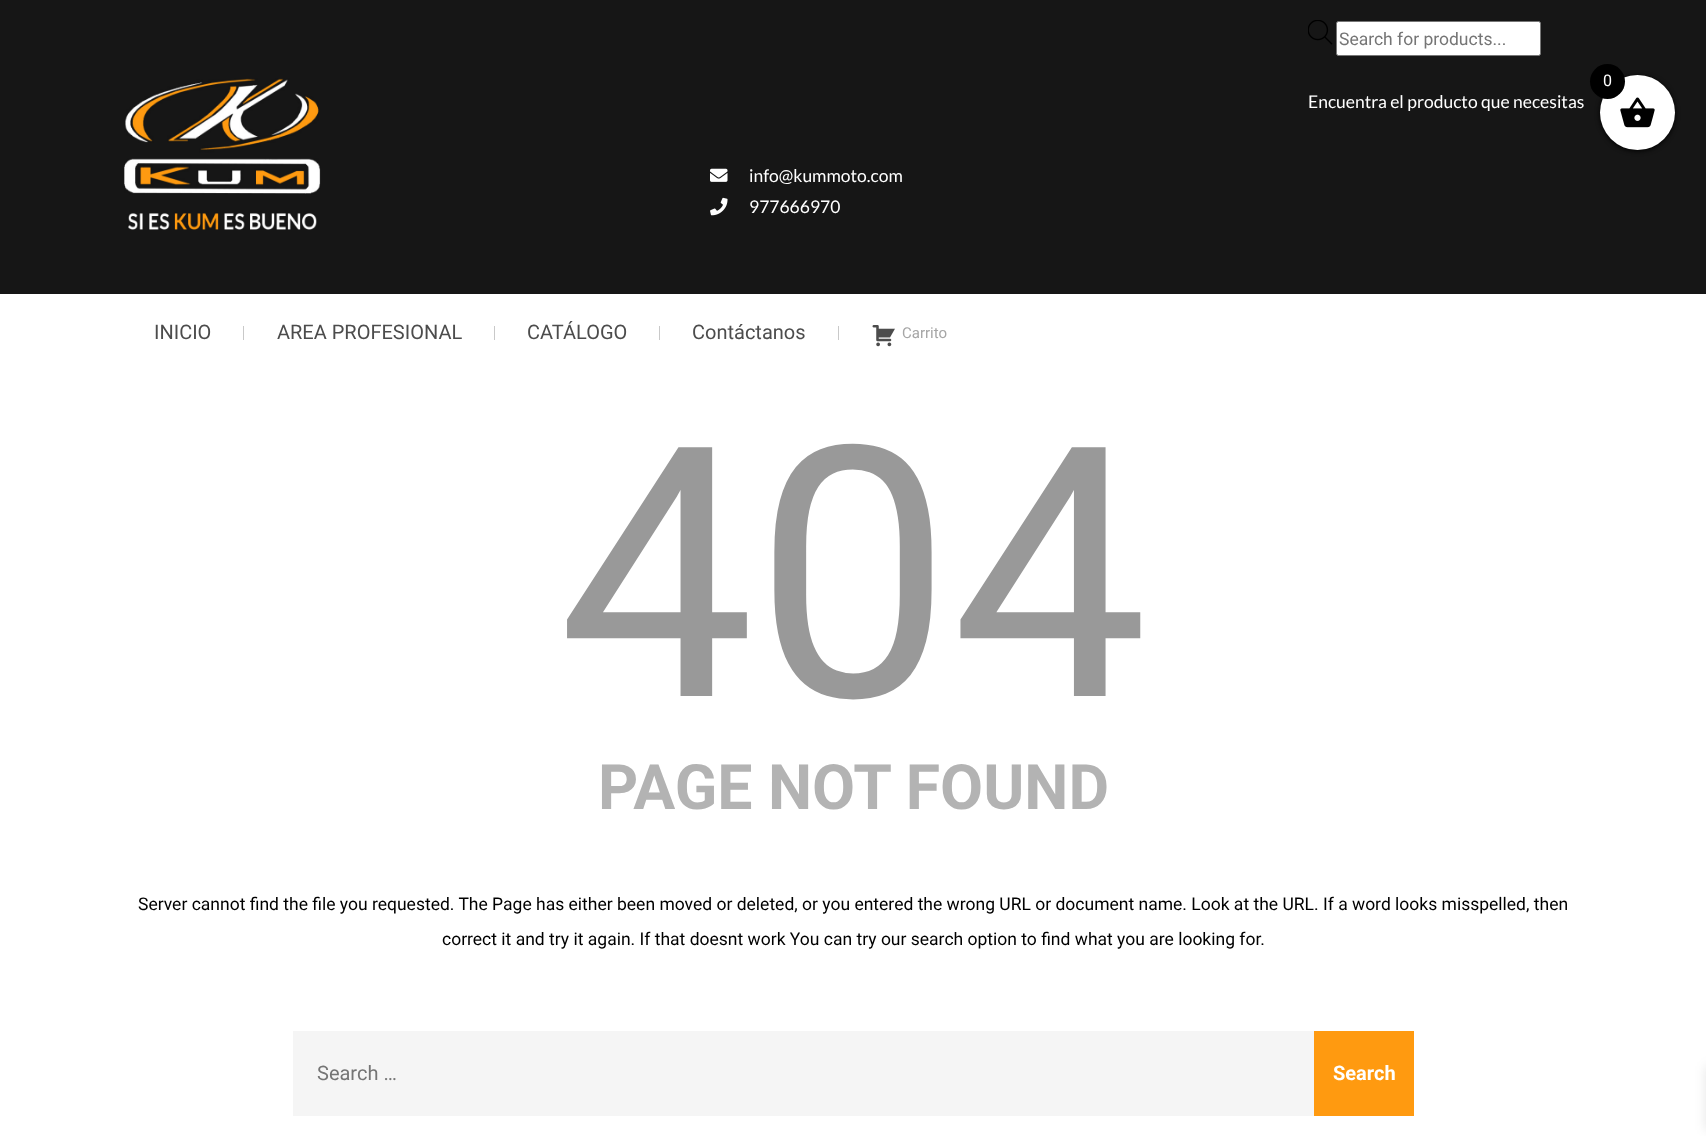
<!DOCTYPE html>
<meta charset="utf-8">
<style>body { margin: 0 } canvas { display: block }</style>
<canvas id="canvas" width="1706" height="1136"></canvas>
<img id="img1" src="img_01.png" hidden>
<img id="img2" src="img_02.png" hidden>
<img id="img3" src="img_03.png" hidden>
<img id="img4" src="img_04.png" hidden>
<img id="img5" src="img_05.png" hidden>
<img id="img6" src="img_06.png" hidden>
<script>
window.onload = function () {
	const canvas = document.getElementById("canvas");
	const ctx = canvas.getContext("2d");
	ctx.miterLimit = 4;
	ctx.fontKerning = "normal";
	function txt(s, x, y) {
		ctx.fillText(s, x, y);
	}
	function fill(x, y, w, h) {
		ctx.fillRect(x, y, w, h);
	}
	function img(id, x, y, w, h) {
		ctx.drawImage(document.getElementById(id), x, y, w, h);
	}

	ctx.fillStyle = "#FFFFFF";
	fill(0, 0, 1706, 1136);
	ctx.fillStyle = "#161616";
	fill(0, 0, 1706, 294);
	img("img1", 124, 78, 197, 152);
	img("img2", 1308, 20, 25, 25);
	ctx.fillStyle = "#FFFFFF";
	ctx.beginPath();
	ctx.roundRect(1336.5, 21.5, 204, 34, 2);
	ctx.fill();
	ctx.strokeStyle = "#767676";
	ctx.stroke();
	img("img3", 710, 168, 18, 14);
	img("img4", 710, 197, 18, 19);
	ctx.fillStyle = "#C9C9C9";
	fill(243, 326, 1, 14);
	fill(494, 326, 1, 14);
	fill(659, 326, 1, 14);
	fill(838, 326, 1, 14);
	img("img5", 872, 325, 23, 22);
	ctx.fillStyle = "#000000";
	ctx.filter = "blur(2.5px)";
	ctx.beginPath();
	ctx.roundRect(1600, 76, 75, 75, 37.5);
	ctx.fill();
	ctx.filter = "none";
	ctx.fillStyle = "#FFFFFF";
	ctx.beginPath();
	ctx.arc(1637.5, 112.5, 37.5, 0, Math.PI * 2);
	ctx.fill();
	img("img6", 1620, 97, 35, 31);
	ctx.fillStyle = "#000000";
	ctx.beginPath();
	ctx.arc(1607.5, 81.5, 17.5, 0, Math.PI * 2);
	ctx.fill();
	ctx.fillStyle = "rgba(0, 0, 0, 0.1)";
	ctx.filter = "blur(6px)";
	ctx.beginPath();
	ctx.rect(1706, 1066, 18, 64);
	ctx.fill();
	ctx.filter = "none";
	ctx.fillStyle = "#F5F5F5";
	fill(293, 1031, 1021, 85);
	ctx.fillStyle = "#FF9A10";
	fill(1314, 1031, 100, 85);
	ctx.font = "17.5px Roboto";
	ctx.fillStyle = "#757575";
	txt("Search for products...", 1339, 45);
	ctx.font = "17.5px Lato";
	ctx.fillStyle = "#FFFFFF";
	txt("Encuentra el producto que necesitas", 1308, 108);
	txt("info@kummoto.com", 749, 182);
	txt("977666970", 749, 213);
	ctx.font = "20px Roboto";
	ctx.fillStyle = "#4C4C4C";
	txt("INICIO", 154, 339);
	txt("AREA PROFESIONAL", 277, 339);
	txt("CATÁLOGO", 527, 339);
	txt("Contáctanos", 692, 339);
	ctx.font = "15px Roboto";
	ctx.fillStyle = "#A6A6A6";
	txt("Carrito", 902, 338);
	ctx.font = "16px Roboto";
	ctx.fillStyle = "#FFFFFF";
	txt("0", 1603, 86);
	ctx.font = "350px Roboto";
	ctx.fillStyle = "#999999";
	txt("404", 558, 696);
	ctx.font = "bold 62.5px Roboto";
	ctx.fillStyle = "#B3B3B3";
	txt("PAGE NOT FOUND", 598, 809);
	ctx.font = "17.5px Roboto";
	ctx.fillStyle = "#000000";
	txt("Server cannot find the file you requested. The Page has either been moved or deleted, or you entered the wrong URL or document name. Look at the URL. If a word looks misspelled, then", 138, 910);
	txt("correct it and try it again. If that doesnt work You can try our search option to find what you are looking for.", 442, 945);
	ctx.font = "20px Roboto";
	ctx.fillStyle = "#757575";
	txt("Search …", 317, 1080);
	ctx.font = "bold 20px Roboto";
	ctx.fillStyle = "#FFFFFF";
	txt("Search", 1333, 1080);
};
</script>
